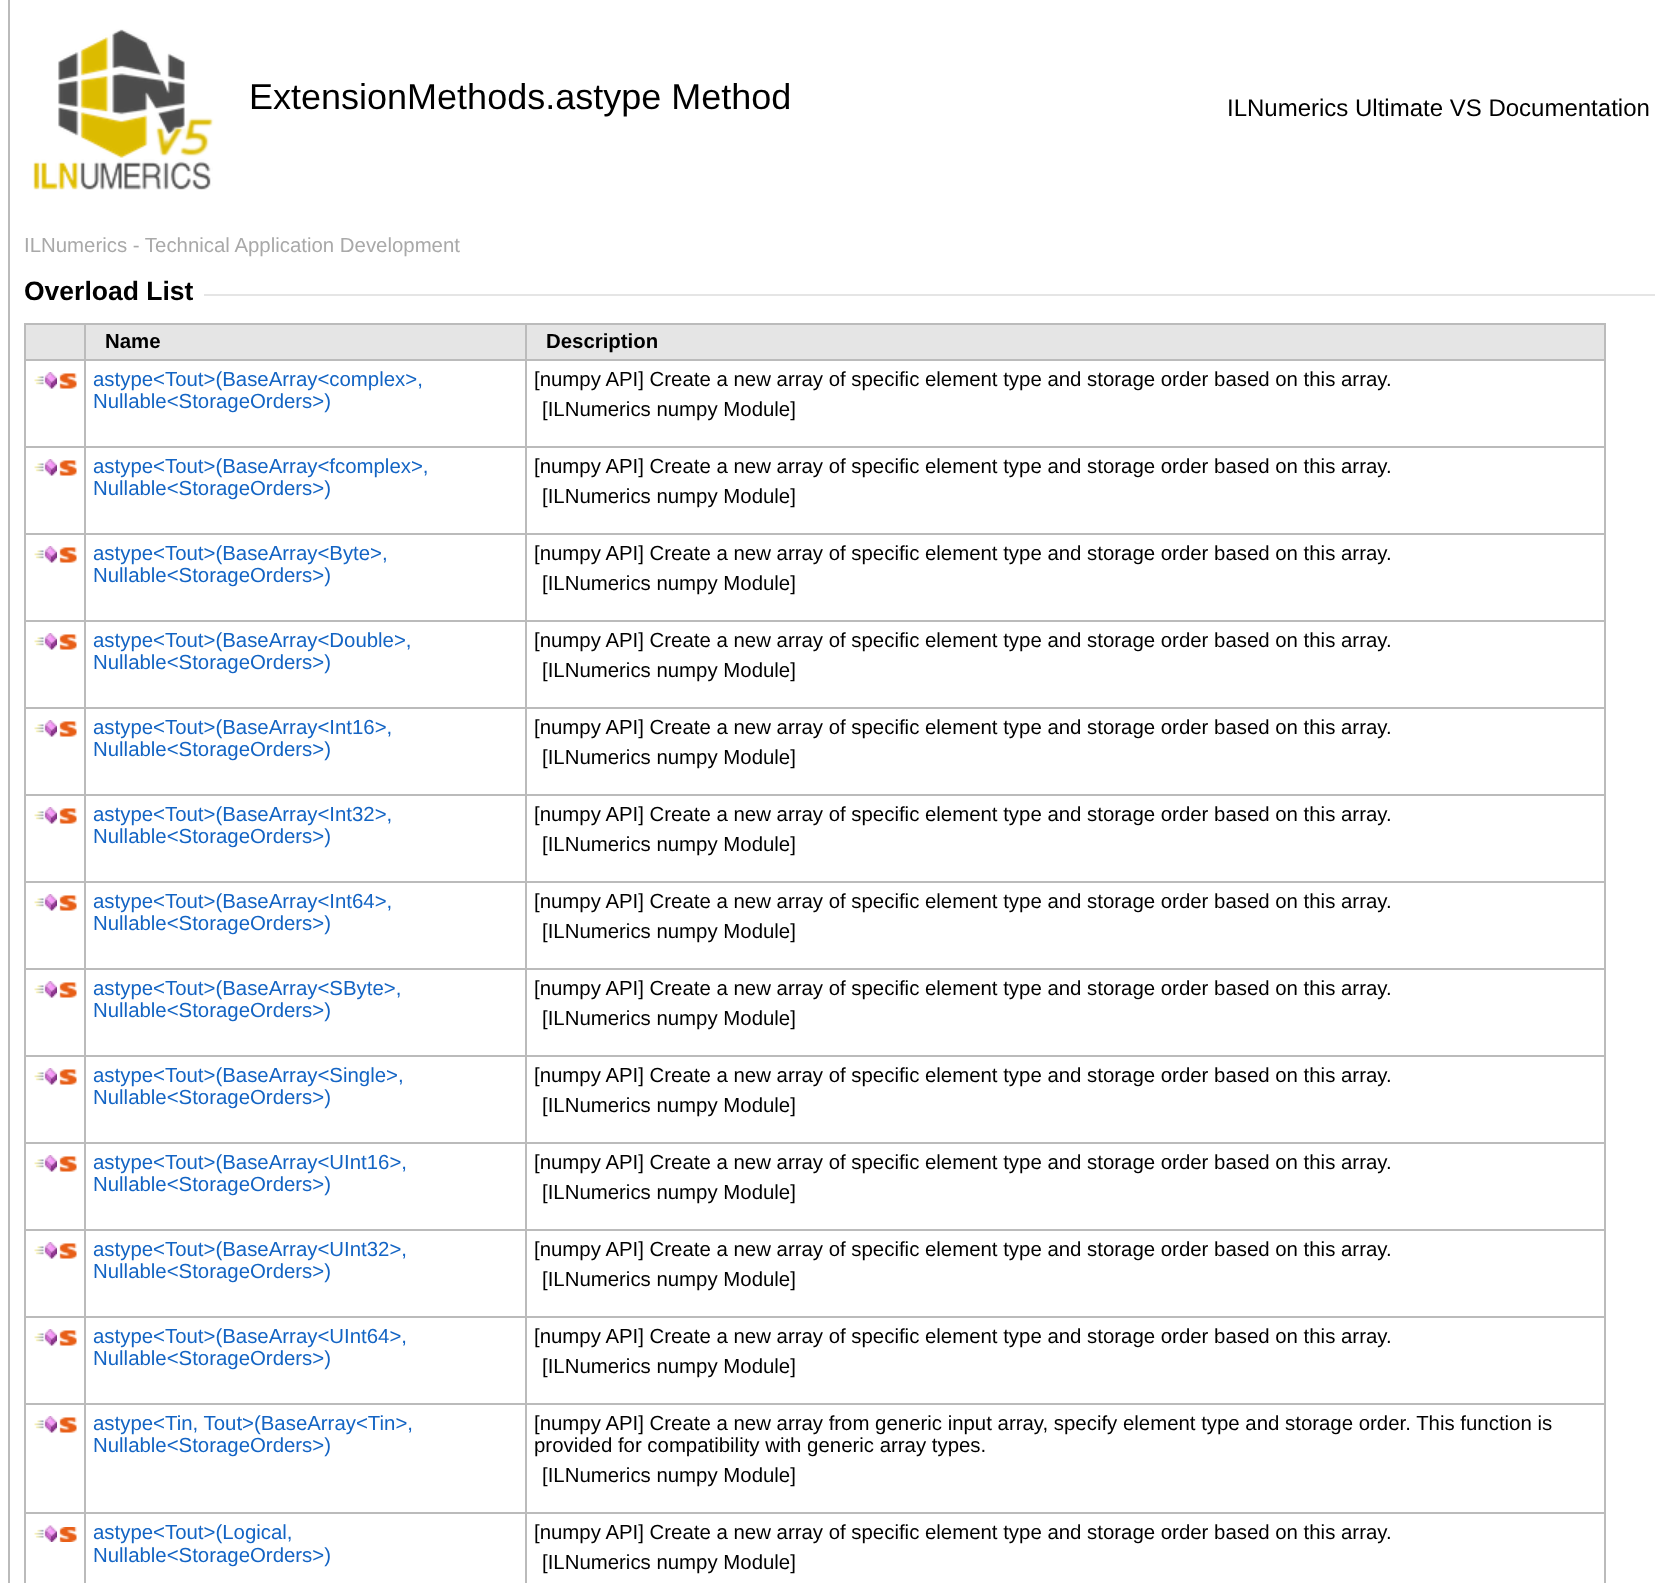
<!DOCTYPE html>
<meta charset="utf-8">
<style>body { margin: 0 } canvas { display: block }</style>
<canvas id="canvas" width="1669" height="1583"></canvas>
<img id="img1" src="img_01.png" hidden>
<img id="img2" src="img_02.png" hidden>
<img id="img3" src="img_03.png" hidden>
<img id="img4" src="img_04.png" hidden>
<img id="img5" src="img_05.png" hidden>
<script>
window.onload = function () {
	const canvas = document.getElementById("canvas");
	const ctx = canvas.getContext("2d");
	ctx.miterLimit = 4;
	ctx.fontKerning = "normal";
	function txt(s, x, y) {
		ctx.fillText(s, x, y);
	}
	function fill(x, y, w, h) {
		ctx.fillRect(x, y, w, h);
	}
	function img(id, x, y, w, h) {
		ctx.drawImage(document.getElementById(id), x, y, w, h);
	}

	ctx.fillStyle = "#FFFFFF";
	fill(0, 0, 1669, 1583);
	ctx.fillStyle = "#BBBBBB";
	fill(8, 0, 2, 1583);
	img("img1", 33, 29, 181, 161);
	ctx.fillStyle = "#E5E5E5";
	fill(204, 294, 1451, 2);
	ctx.fillStyle = "#BBBBBB";
	fill(24, 323, 1581, 2);
	fill(1604, 323, 2, 1260);
	fill(24, 323, 2, 1260);
	ctx.fillStyle = "#E5E5E5";
	fill(26, 325, 58, 34);
	fill(86, 325, 439, 34);
	ctx.fillStyle = "#BBBBBB";
	fill(525, 359, 1080, 2);
	fill(525, 446, 1080, 2);
	fill(525, 533, 1080, 2);
	fill(525, 620, 1080, 2);
	fill(525, 707, 1080, 2);
	fill(525, 794, 1080, 2);
	fill(525, 881, 1080, 2);
	fill(525, 968, 1080, 2);
	fill(525, 1055, 1080, 2);
	fill(525, 1142, 1080, 2);
	fill(525, 1229, 1080, 2);
	fill(525, 1316, 1080, 2);
	fill(525, 1403, 1080, 2);
	fill(525, 1512, 1080, 2);
	fill(525, 1512, 2, 71);
	fill(84, 1512, 443, 2);
	fill(525, 1403, 2, 111);
	fill(84, 1403, 443, 2);
	fill(525, 1316, 2, 88);
	fill(84, 1316, 443, 2);
	fill(525, 1229, 2, 88);
	fill(84, 1229, 443, 2);
	fill(525, 1142, 2, 88);
	fill(84, 1142, 443, 2);
	fill(525, 1055, 2, 88);
	fill(84, 1055, 443, 2);
	fill(525, 968, 2, 88);
	fill(84, 968, 443, 2);
	fill(525, 881, 2, 88);
	fill(84, 881, 443, 2);
	fill(525, 794, 2, 88);
	fill(84, 794, 443, 2);
	fill(525, 707, 2, 88);
	fill(84, 707, 443, 2);
	fill(525, 620, 2, 88);
	fill(84, 620, 443, 2);
	fill(525, 533, 2, 88);
	fill(84, 533, 443, 2);
	fill(525, 446, 2, 88);
	fill(84, 446, 443, 2);
	fill(525, 359, 2, 88);
	fill(84, 359, 443, 2);
	fill(84, 1512, 2, 71);
	fill(24, 1512, 62, 2);
	fill(84, 1403, 2, 111);
	fill(24, 1403, 62, 2);
	fill(84, 1316, 2, 88);
	fill(24, 1316, 62, 2);
	fill(84, 1229, 2, 88);
	fill(24, 1229, 62, 2);
	fill(84, 1142, 2, 88);
	fill(24, 1142, 62, 2);
	fill(84, 1055, 2, 88);
	fill(24, 1055, 62, 2);
	fill(84, 968, 2, 88);
	fill(24, 968, 62, 2);
	fill(84, 881, 2, 88);
	fill(24, 881, 62, 2);
	fill(84, 794, 2, 88);
	fill(24, 794, 62, 2);
	fill(84, 707, 2, 88);
	fill(24, 707, 62, 2);
	fill(84, 620, 2, 88);
	fill(24, 620, 62, 2);
	fill(84, 533, 2, 88);
	fill(24, 533, 62, 2);
	fill(84, 446, 2, 88);
	fill(24, 446, 62, 2);
	fill(84, 359, 2, 88);
	fill(24, 359, 62, 2);
	fill(84, 323, 2, 37);
	ctx.fillStyle = "#E5E5E5";
	fill(527, 325, 1077, 34);
	ctx.fillStyle = "#BBBBBB";
	fill(525, 323, 2, 37);
	img("img2", 34, 372, 23, 17);
	img("img3", 59, 373, 18, 16);
	img("img2", 34, 459, 23, 17);
	img("img3", 59, 460, 18, 16);
	img("img2", 34, 546, 23, 17);
	img("img3", 59, 547, 18, 16);
	img("img2", 34, 633, 23, 17);
	img("img3", 59, 634, 18, 16);
	img("img2", 34, 720, 23, 17);
	img("img3", 59, 721, 18, 16);
	img("img2", 34, 807, 23, 17);
	img("img3", 59, 808, 18, 16);
	img("img2", 34, 894, 23, 17);
	img("img3", 59, 895, 18, 16);
	img("img2", 34, 981, 23, 17);
	img("img3", 59, 982, 18, 16);
	img("img2", 34, 1068, 23, 17);
	img("img3", 59, 1069, 18, 16);
	img("img2", 34, 1155, 23, 17);
	img("img3", 59, 1156, 18, 16);
	img("img2", 34, 1242, 23, 17);
	img("img3", 59, 1243, 18, 16);
	img("img2", 34, 1329, 23, 17);
	img("img3", 59, 1330, 18, 16);
	img("img2", 34, 1416, 23, 17);
	img("img3", 59, 1417, 18, 16);
	img("img4", 34, 1525, 23, 17);
	img("img5", 59, 1527, 18, 15);
	ctx.font = "36px Liberation Sans";
	ctx.fillStyle = "#000000";
	txt("ExtensionMethods.astype Method", 249, 109);
	ctx.font = "24px Liberation Sans";
	txt("ILNumerics Ultimate VS Documentation", 1227, 116);
	ctx.font = "20.4px Liberation Sans";
	ctx.fillStyle = "#A9A9A9";
	txt("ILNumerics - Technical Application Development", 24, 252);
	ctx.font = "bold 26.5px Liberation Sans";
	ctx.fillStyle = "#000000";
	txt("Overload List", 24, 300);
	ctx.font = "bold 20.4px Liberation Sans";
	txt("Name", 105, 348);
	txt("Description", 546, 348);
	ctx.font = "20.4px Liberation Sans";
	ctx.fillStyle = "#1364C4";
	txt("astype<Tout>(BaseArray<complex>,", 93, 386);
	txt("Nullable<StorageOrders>)", 93, 408);
	ctx.fillStyle = "#000000";
	txt("[numpy API] Create a new array of specific element type and storage order based on this array.", 534, 386);
	txt("[ILNumerics numpy Module]", 542, 416);
	ctx.fillStyle = "#1364C4";
	txt("astype<Tout>(BaseArray<fcomplex>,", 93, 473);
	txt("Nullable<StorageOrders>)", 93, 495);
	ctx.fillStyle = "#000000";
	txt("[numpy API] Create a new array of specific element type and storage order based on this array.", 534, 473);
	txt("[ILNumerics numpy Module]", 542, 503);
	ctx.fillStyle = "#1364C4";
	txt("astype<Tout>(BaseArray<Byte>,", 93, 560);
	txt("Nullable<StorageOrders>)", 93, 582);
	ctx.fillStyle = "#000000";
	txt("[numpy API] Create a new array of specific element type and storage order based on this array.", 534, 560);
	txt("[ILNumerics numpy Module]", 542, 590);
	ctx.fillStyle = "#1364C4";
	txt("astype<Tout>(BaseArray<Double>,", 93, 647);
	txt("Nullable<StorageOrders>)", 93, 669);
	ctx.fillStyle = "#000000";
	txt("[numpy API] Create a new array of specific element type and storage order based on this array.", 534, 647);
	txt("[ILNumerics numpy Module]", 542, 677);
	ctx.fillStyle = "#1364C4";
	txt("astype<Tout>(BaseArray<Int16>,", 93, 734);
	txt("Nullable<StorageOrders>)", 93, 756);
	ctx.fillStyle = "#000000";
	txt("[numpy API] Create a new array of specific element type and storage order based on this array.", 534, 734);
	txt("[ILNumerics numpy Module]", 542, 764);
	ctx.fillStyle = "#1364C4";
	txt("astype<Tout>(BaseArray<Int32>,", 93, 821);
	txt("Nullable<StorageOrders>)", 93, 843);
	ctx.fillStyle = "#000000";
	txt("[numpy API] Create a new array of specific element type and storage order based on this array.", 534, 821);
	txt("[ILNumerics numpy Module]", 542, 851);
	ctx.fillStyle = "#1364C4";
	txt("astype<Tout>(BaseArray<Int64>,", 93, 908);
	txt("Nullable<StorageOrders>)", 93, 930);
	ctx.fillStyle = "#000000";
	txt("[numpy API] Create a new array of specific element type and storage order based on this array.", 534, 908);
	txt("[ILNumerics numpy Module]", 542, 938);
	ctx.fillStyle = "#1364C4";
	txt("astype<Tout>(BaseArray<SByte>,", 93, 995);
	txt("Nullable<StorageOrders>)", 93, 1017);
	ctx.fillStyle = "#000000";
	txt("[numpy API] Create a new array of specific element type and storage order based on this array.", 534, 995);
	txt("[ILNumerics numpy Module]", 542, 1025);
	ctx.fillStyle = "#1364C4";
	txt("astype<Tout>(BaseArray<Single>,", 93, 1082);
	txt("Nullable<StorageOrders>)", 93, 1104);
	ctx.fillStyle = "#000000";
	txt("[numpy API] Create a new array of specific element type and storage order based on this array.", 534, 1082);
	txt("[ILNumerics numpy Module]", 542, 1112);
	ctx.fillStyle = "#1364C4";
	txt("astype<Tout>(BaseArray<UInt16>,", 93, 1169);
	txt("Nullable<StorageOrders>)", 93, 1191);
	ctx.fillStyle = "#000000";
	txt("[numpy API] Create a new array of specific element type and storage order based on this array.", 534, 1169);
	txt("[ILNumerics numpy Module]", 542, 1199);
	ctx.fillStyle = "#1364C4";
	txt("astype<Tout>(BaseArray<UInt32>,", 93, 1256);
	txt("Nullable<StorageOrders>)", 93, 1278);
	ctx.fillStyle = "#000000";
	txt("[numpy API] Create a new array of specific element type and storage order based on this array.", 534, 1256);
	txt("[ILNumerics numpy Module]", 542, 1286);
	ctx.fillStyle = "#1364C4";
	txt("astype<Tout>(BaseArray<UInt64>,", 93, 1343);
	txt("Nullable<StorageOrders>)", 93, 1365);
	ctx.fillStyle = "#000000";
	txt("[numpy API] Create a new array of specific element type and storage order based on this array.", 534, 1343);
	txt("[ILNumerics numpy Module]", 542, 1373);
	ctx.fillStyle = "#1364C4";
	txt("astype<Tin, Tout>(BaseArray<Tin>,", 93, 1430);
	txt("Nullable<StorageOrders>)", 93, 1452);
	ctx.fillStyle = "#000000";
	txt("[numpy API] Create a new array from generic input array, specify element type and storage order. This function is", 534, 1430);
	txt("provided for compatibility with generic array types.", 534, 1452);
	txt("[ILNumerics numpy Module]", 542, 1482);
	ctx.fillStyle = "#1364C4";
	txt("astype<Tout>(Logical,", 93, 1539);
	txt("Nullable<StorageOrders>)", 93, 1562);
	ctx.fillStyle = "#000000";
	txt("[numpy API] Create a new array of specific element type and storage order based on this array.", 534, 1539);
	txt("[ILNumerics numpy Module]", 542, 1569);
};
</script>
